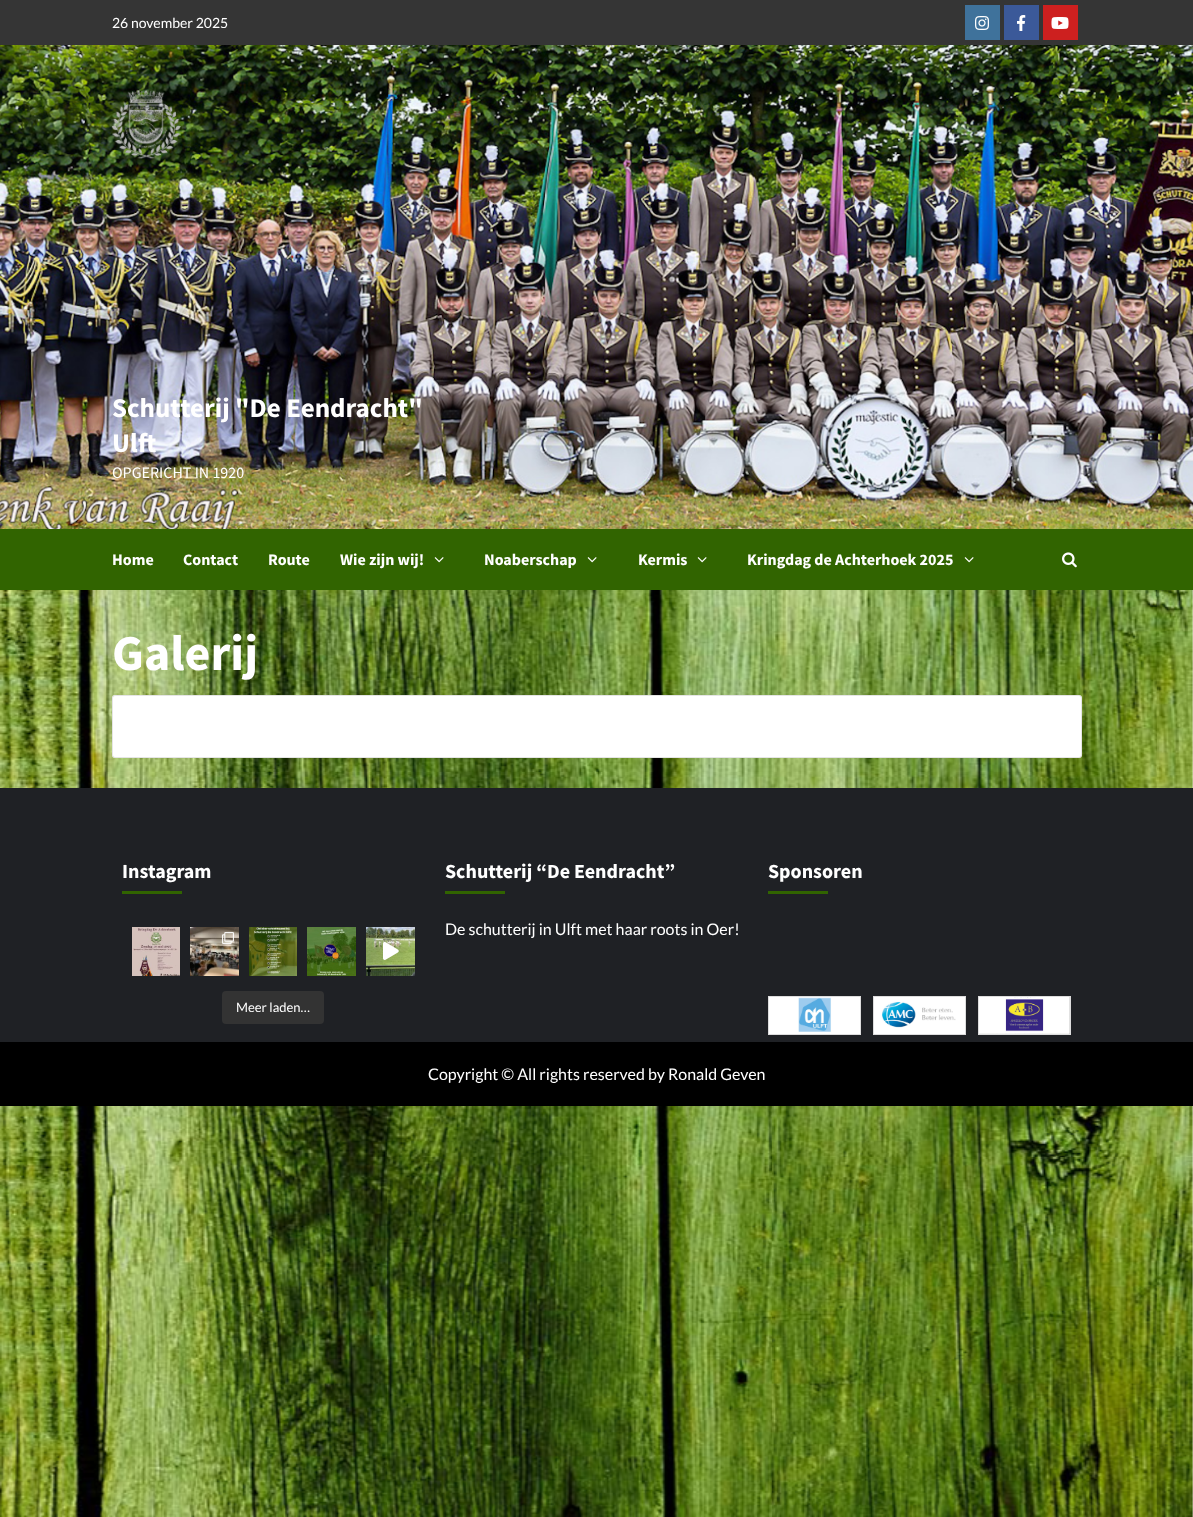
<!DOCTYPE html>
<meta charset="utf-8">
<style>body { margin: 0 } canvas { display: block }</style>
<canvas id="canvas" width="1193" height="1517"></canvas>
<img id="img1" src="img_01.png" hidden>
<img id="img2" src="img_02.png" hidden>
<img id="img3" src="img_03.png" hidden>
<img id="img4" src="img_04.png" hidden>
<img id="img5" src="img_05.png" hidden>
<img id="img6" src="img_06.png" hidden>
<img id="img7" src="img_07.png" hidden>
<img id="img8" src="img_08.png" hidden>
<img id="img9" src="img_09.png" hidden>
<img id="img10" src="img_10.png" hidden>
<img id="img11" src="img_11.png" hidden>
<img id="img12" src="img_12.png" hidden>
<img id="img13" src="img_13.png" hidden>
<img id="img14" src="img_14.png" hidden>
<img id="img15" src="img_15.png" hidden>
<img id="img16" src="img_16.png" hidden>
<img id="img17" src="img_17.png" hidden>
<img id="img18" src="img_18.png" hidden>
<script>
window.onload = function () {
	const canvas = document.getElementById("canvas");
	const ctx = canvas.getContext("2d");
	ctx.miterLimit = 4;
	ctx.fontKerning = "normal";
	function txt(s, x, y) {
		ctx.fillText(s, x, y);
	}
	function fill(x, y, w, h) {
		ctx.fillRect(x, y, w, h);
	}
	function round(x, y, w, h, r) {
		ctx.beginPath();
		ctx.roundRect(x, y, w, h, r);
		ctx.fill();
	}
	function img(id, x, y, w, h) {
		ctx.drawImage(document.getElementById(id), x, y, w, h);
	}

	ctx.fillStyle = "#F5F5F5";
	fill(0, 0, 1193, 1517);
	img("img1", 0, 590, 1193, 927);
	ctx.fillStyle = "#353535";
	fill(0, 0, 1193, 45);
	ctx.fillStyle = "#3F729B";
	fill(965, 5, 35, 35);
	img("img2", 975, 16, 14, 14);
	ctx.fillStyle = "#3B5999";
	fill(1004, 5, 35, 35);
	img("img3", 1017, 15, 9, 16);
	ctx.fillStyle = "#CD201F";
	fill(1043, 5, 35, 35);
	img("img4", 1051, 17, 18, 12);
	img("img5", 0, 45, 1193, 484);
	img("img6", 112, 90, 69, 69);
	ctx.fillStyle = "#316400";
	fill(0, 529, 1193, 61);
	img("img7", 434, 557, 10, 6);
	img("img7", 587, 557, 10, 6);
	img("img7", 697, 557, 10, 6);
	img("img7", 964, 557, 10, 6);
	img("img8", 1062, 552, 15, 16);
	ctx.fillStyle = "#FFFFFF";
	round(112, 695, 970, 63, 3);
	ctx.beginPath();
	ctx.roundRect(112.5, 695.5, 969, 62, 2.5);
	ctx.strokeStyle = "rgba(0, 1, 1, 0.1)";
	ctx.stroke();
	ctx.fillStyle = "#1F2125";
	fill(0, 788, 1193, 254);
	ctx.fillStyle = "#316400";
	fill(122, 891, 60, 3);
	img("img9", 132, 927, 48, 49);
	img("img10", 190, 927, 49, 49);
	img("img11", 222, 932, 12, 12);
	img("img12", 249, 927, 48, 49);
	img("img13", 307, 927, 49, 49);
	img("img14", 366, 927, 49, 49);
	img("img15", 383, 942, 16, 18);
	ctx.fillStyle = "#333333";
	round(222, 991, 102, 33, 4);
	ctx.fillStyle = "#316400";
	fill(445, 891, 60, 3);
	fill(768, 891, 60, 3);
	ctx.strokeStyle = "#DDDDDD";
	ctx.strokeRect(768.5, 996.5, 92, 38);
	img("img16", 769, 997, 91, 37);
	ctx.strokeRect(873.5, 996.5, 92, 38);
	img("img17", 874, 997, 91, 37);
	ctx.strokeRect(978.5, 996.5, 92, 38);
	img("img18", 979, 997, 91, 37);
	ctx.fillStyle = "#000000";
	fill(0, 1042, 1193, 64);
	ctx.font = "14px Lato";
	ctx.fillStyle = "#FFFFFF";
	txt("26 november 2025", 112, 28);
	ctx.font = "bold 27px Source Sans Pro";
	txt("Schutterij \"De Eendracht\"", 112, 417);
	txt("Ulft", 112, 452);
	ctx.font = "16px Source Sans Pro";
	txt("OPGERICHT IN 1920", 112, 478);
	ctx.font = "bold 16px Source Sans Pro";
	txt("Home", 112, 565);
	txt("Contact", 183, 565);
	txt("Route", 268, 565);
	txt("Wie zijn wij!", 340, 565);
	txt("Noaberschap", 484, 565);
	txt("Kermis", 638, 565);
	txt("Kringdag de Achterhoek 2025", 747, 565);
	ctx.font = "bold 50px Source Sans Pro";
	txt("Galerij", 112, 670);
	ctx.font = "bold 20px Source Sans Pro";
	txt("Instagram", 122, 878);
	ctx.font = "13px Lato";
	txt("Meer laden…", 236, 1012);
	ctx.font = "bold 20px Source Sans Pro";
	txt("Schutterij “De Eendracht”", 445, 878);
	ctx.font = "16px Lato";
	txt("De schutterij in Ulft met haar roots in Oer!", 445, 935);
	ctx.font = "bold 20px Source Sans Pro";
	txt("Sponsoren", 768, 878);
	ctx.font = "16px Lato";
	txt("Copyright © All rights reserved by Ronald Geven", 428, 1080);
};
</script>
